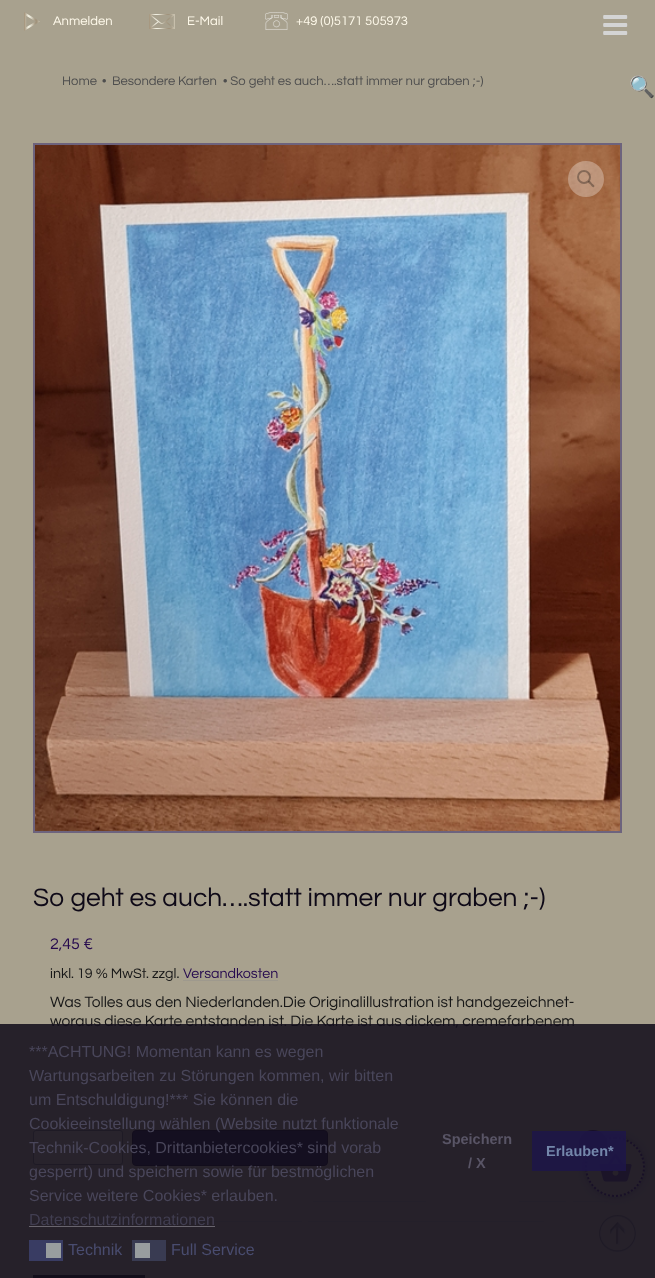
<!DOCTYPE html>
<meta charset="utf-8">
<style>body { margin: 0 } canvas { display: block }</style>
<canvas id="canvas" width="655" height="1278"></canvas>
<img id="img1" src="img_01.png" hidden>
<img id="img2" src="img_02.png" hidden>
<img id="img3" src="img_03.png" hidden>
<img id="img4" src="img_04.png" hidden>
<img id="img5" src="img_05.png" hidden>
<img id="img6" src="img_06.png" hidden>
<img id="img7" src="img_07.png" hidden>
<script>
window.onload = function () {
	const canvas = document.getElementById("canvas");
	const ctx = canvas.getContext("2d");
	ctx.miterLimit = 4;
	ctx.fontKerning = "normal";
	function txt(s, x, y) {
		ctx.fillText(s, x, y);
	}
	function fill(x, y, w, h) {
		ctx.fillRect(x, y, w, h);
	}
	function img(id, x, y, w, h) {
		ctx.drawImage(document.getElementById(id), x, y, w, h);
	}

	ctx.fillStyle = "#A8A18E";
	fill(0, 0, 655, 1278);
	img("img1", 24, 12, 16, 19);
	img("img2", 149, 14, 26, 15);
	img("img3", 265, 12, 23, 18);
	img("img4", 603, 15, 25, 20);
	ctx.beginPath();
	ctx.rect(34, 144, 587, 688);
	ctx.strokeStyle = "#6D637D";
	ctx.lineWidth = 2;
	ctx.stroke();
	img("img5", 35, 145, 585, 686);
	ctx.fillStyle = "rgba(255, 255, 255, 0.3)";
	ctx.beginPath();
	ctx.arc(586, 179, 18, 0, Math.PI * 2);
	ctx.fill();
	ctx.beginPath();
	ctx.arc(584, 177, 6, 0, Math.PI * 2);
	ctx.strokeStyle = "rgba(0, 0, 0, 0.3)";
	ctx.stroke();
	ctx.fillStyle = "rgba(0, 0, 0, 0.3)";
	ctx.beginPath();
	ctx.moveTo(588.5, 181);
	ctx.bezierCurveTo(589.5, 180, 591.5, 182.5, 592, 183.5);
	ctx.bezierCurveTo(592.5, 184, 595.5, 185.5, 594, 187);
	ctx.bezierCurveTo(593, 188, 591, 185.5, 590.5, 184.5);
	ctx.bezierCurveTo(590, 184, 587, 182.5, 588.5, 181);
	ctx.closePath();
	ctx.fill();
	ctx.fillStyle = "#9E998D";
	fill(183, 980, 95, 1);
	ctx.fillStyle = "#BDB59F";
	ctx.beginPath();
	ctx.roundRect(33.5, 1130.5, 89, 34, 2.5);
	ctx.fill();
	ctx.strokeStyle = "#6B6961";
	ctx.lineWidth = 1;
	ctx.stroke();
	ctx.fillStyle = "#1B133E";
	ctx.beginPath();
	ctx.roundRect(132.5, 1130.5, 195, 35, 3.5);
	ctx.fill();
	ctx.strokeStyle = "#0E041D";
	ctx.stroke();
	ctx.fillStyle = "#9E998D";
	fill(313, 1201, 113, 1);
	fill(519, 1201, 47, 1);
	fill(573, 1201, 35, 1);
	fill(33, 1221, 33, 1);
	fill(73, 1221, 229, 1);
	fill(308, 1221, 236, 1);
	ctx.fillStyle = "#0F0F0F";
	fill(33, 1275, 112, 3);
	img("img6", 599, 1215, 37, 37);
	ctx.fillStyle = "#67686F";
	ctx.filter = "blur(3px)";
	ctx.beginPath();
	ctx.roundRect(585, 1137, 60, 60, 30);
	ctx.fill();
	ctx.filter = "none";
	ctx.fillStyle = "#A8A28D";
	ctx.beginPath();
	ctx.arc(615, 1167, 30, 0, Math.PI * 2);
	ctx.fill();
	ctx.beginPath();
	ctx.moveTo(615, 1138);
	ctx.bezierCurveTo(631, 1138, 644, 1151, 644, 1167);
	ctx.bezierCurveTo(644, 1183, 631, 1196, 615, 1196);
	ctx.bezierCurveTo(599, 1196, 586, 1183, 586, 1167);
	ctx.bezierCurveTo(586, 1151, 599, 1138, 615, 1138);
	ctx.closePath();
	ctx.strokeStyle = "#39186D";
	ctx.lineWidth = 2;
	ctx.setLineDash([2, 2]);
	ctx.stroke();
	img("img7", 599, 1153, 33, 29);
	ctx.fillStyle = "#39186D";
	ctx.beginPath();
	ctx.arc(593, 1144, 14, 0, Math.PI * 2);
	ctx.fill();
	ctx.font = "13px Questrial";
	ctx.fillStyle = "#FFFAEB";
	txt("Anmelden", 53, 25);
	txt("E-Mail", 187, 25);
	txt("+49 (0)5171 505973", 296, 25);
	ctx.fillStyle = "#4E4E4E";
	txt("Home", 62, 85);
	txt("•", 102, 85);
	txt("Besondere Karten", 112, 85);
	txt("• So geht es auch….statt immer nur graben ;-)", 223, 85);
	ctx.font = "21px Noto Color Emoji";
	ctx.fillStyle = "#262523";
	txt("🔍", 629, 94);
	ctx.font = "26.3px Questrial";
	ctx.fillStyle = "#0E0917";
	txt("So geht es auch….statt immer nur graben ;-)", 33, 906);
	ctx.font = "16px Questrial";
	ctx.fillStyle = "#260A4E";
	txt("2,45 €", 50, 949);
	ctx.font = "14.25px Questrial";
	ctx.fillStyle = "#171717";
	txt("inkl. 19 % MwSt. zzgl.", 50, 978);
	ctx.fillStyle = "#260A4E";
	txt("Versandkosten", 183, 978);
	ctx.font = "15.55px Questrial";
	ctx.fillStyle = "#171717";
	txt("Was Tolles aus den Niederlanden.Die Originalillustration ist handgezeichnet-", 50, 1007);
	txt("woraus diese Karte entstanden ist. Die Karte ist aus dickem, cremefarbenem", 50, 1026);
	ctx.fillStyle = "rgba(19, 15, 29, 0.88)";
	fill(0, 1024, 655, 254);
	ctx.font = "16px Liberation Sans";
	ctx.fillStyle = "#49465A";
	txt("***ACHTUNG! Momentan kann es wegen", 29, 1057);
	txt("Wartungsarbeiten zu Störungen kommen, wir bitten", 29, 1081);
	txt("um Entschuldigung!*** Sie können die", 29, 1105);
	txt("Cookieeinstellung wählen (Website nutzt funktionale", 29, 1129);
	txt("Technik-Cookies, Drittanbietercookies* sind vorab", 29, 1153);
	txt("gesperrt) und speichern sowie für bestmöglichen", 29, 1177);
	txt("Service weitere Cookies* erlauben.", 29, 1201);
	ctx.fillStyle = "#413E51";
	txt("Datenschutzinformationen", 29, 1225);
	ctx.fillStyle = "#69656E";
	fill(29, 1226, 186, 1);
	ctx.fillStyle = "rgba(60, 64, 107, 0.88)";
	fill(29, 1240, 34, 21);
	ctx.fillStyle = "#989D9F";
	fill(46, 1243, 15, 15);
	ctx.fillStyle = "#494C6F";
	txt("Technik", 68, 1255);
	ctx.fillStyle = "#393B52";
	fill(132, 1240, 34, 21);
	ctx.fillStyle = "#989D9F";
	fill(135, 1243, 15, 15);
	ctx.fillStyle = "#494C6F";
	txt("Full Service", 171, 1255);
	ctx.font = "bold 14.5px Liberation Sans";
	ctx.fillStyle = "#595566";
	txt("Speichern", 442, 1144);
	txt("/ X", 468, 1168);
	ctx.fillStyle = "rgba(30, 22, 72, 0.88)";
	fill(532, 1131, 94, 40);
	ctx.fillStyle = "#7487AB";
	txt("Erlauben*", 546, 1156);
};
</script>
